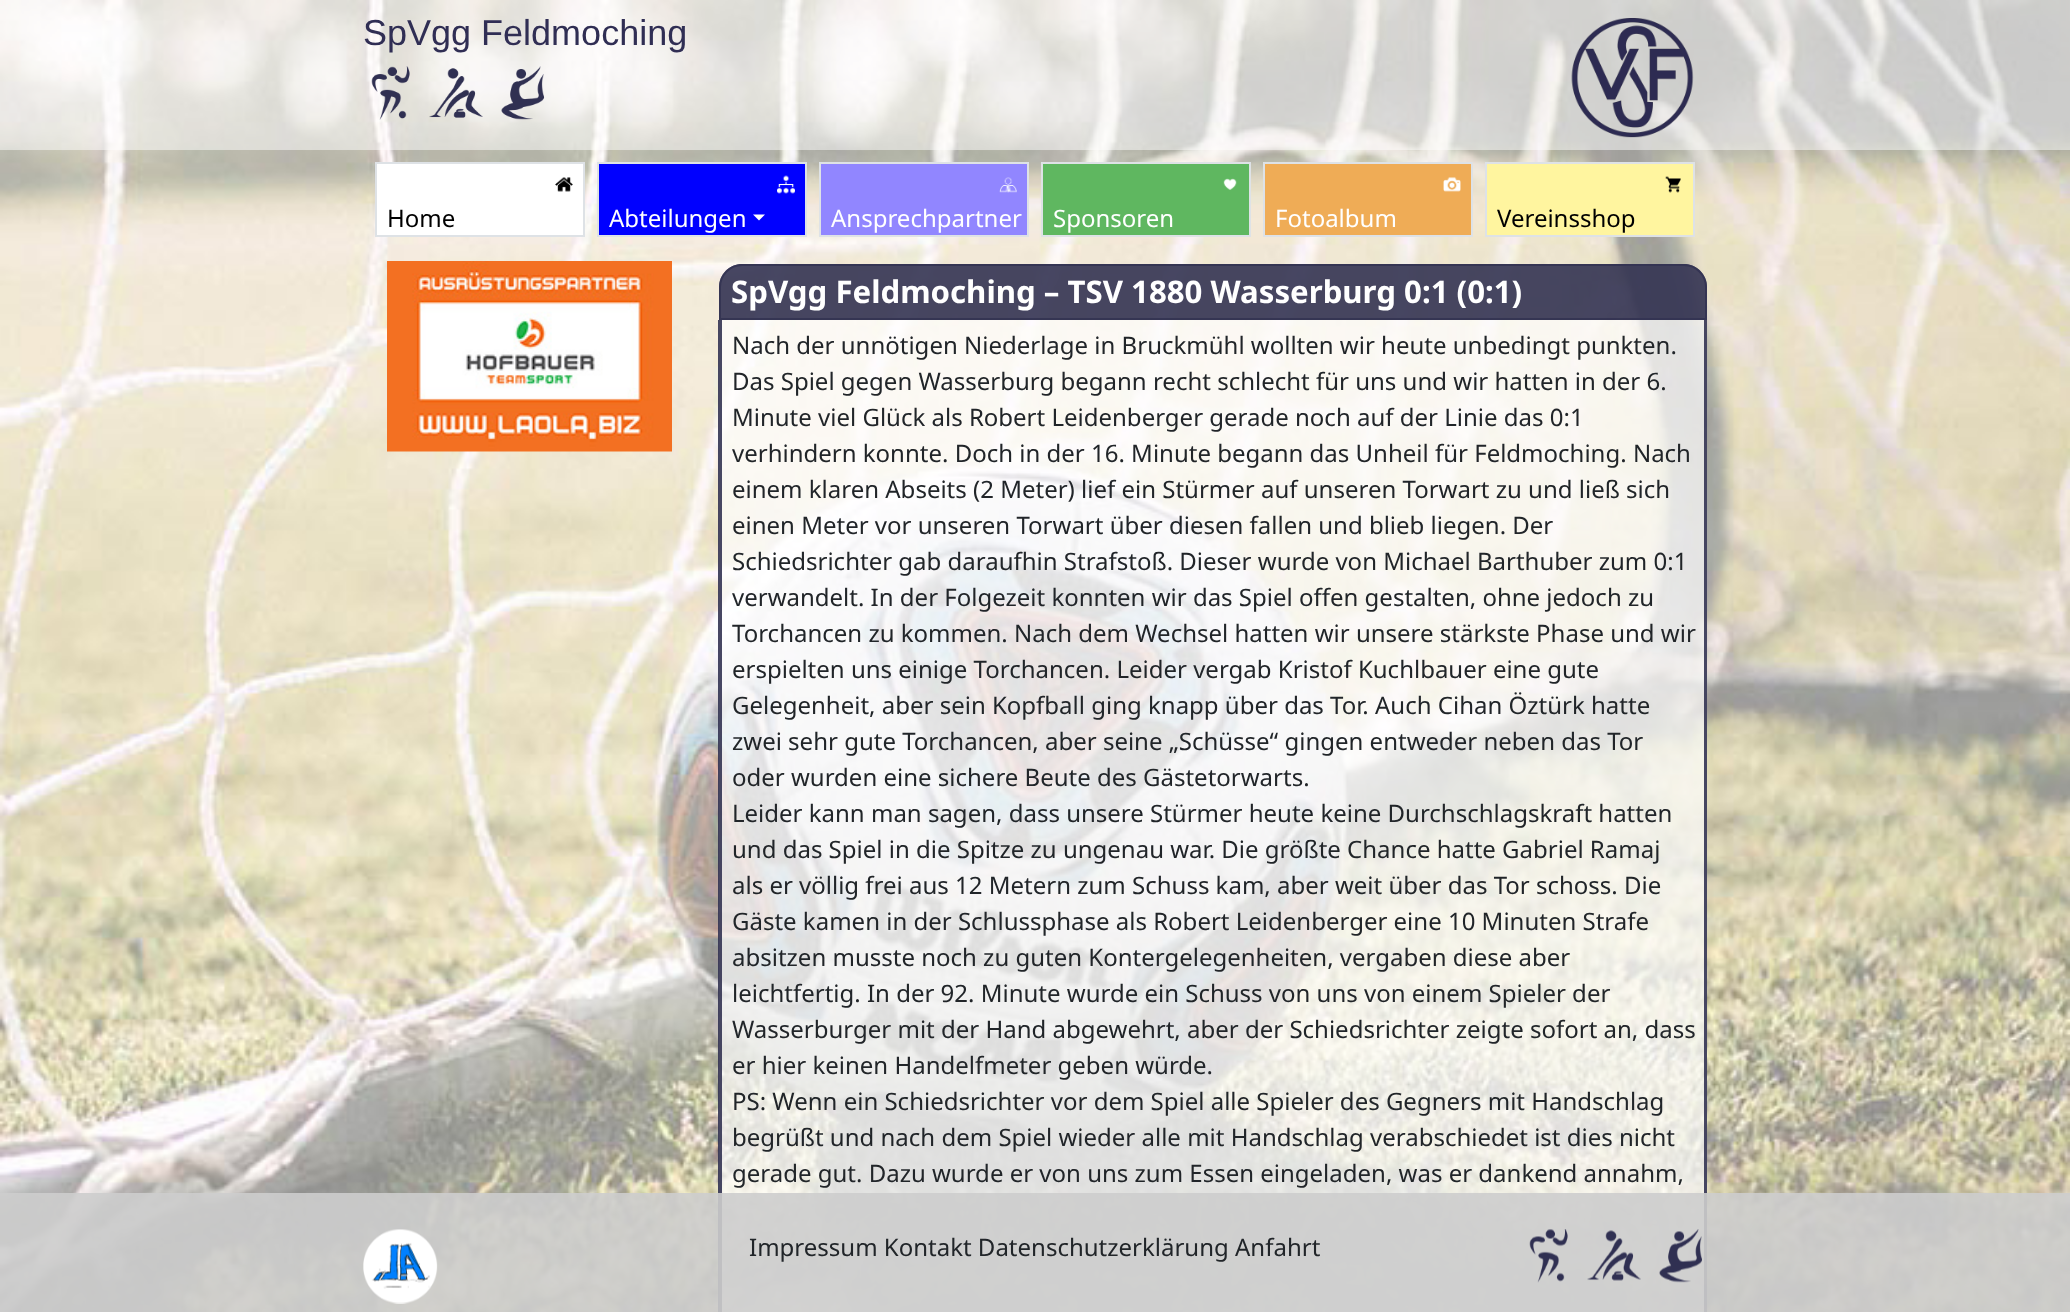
<svg xmlns="http://www.w3.org/2000/svg" width="2070" height="1312" viewBox="0 0 2070 1312">
  <style>
    .t1 { font: 36px Liberation Sans; fill: #302e54; }
    .t2 { font: 24px Noto Sans; fill: #000; }
    .t3 { font: 24px Noto Sans; fill: #fff; }
    .t4 { font: bold 31.2px Noto Sans; fill: #fff; }
    .t5 { font: 24px Noto Sans; fill: #212529; }
  </style>
  <rect width="100%" height="100%" fill="#fff"/>
  <image x="0" y="0" width="2070" height="1312" href="images/1.png"/>
  <rect x="0" y="0" width="2070" height="150" fill="#ffffff80"/>
  <text x="363" y="45" class="t1">SpVgg Feldmoching</text>
  <image x="371" y="66" width="39" height="54" href="images/2.png"/>
  <image x="429" y="68" width="54" height="50" href="images/3.png"/>
  <image x="501" y="66" width="44" height="54" href="images/4.png"/>
  <image x="1571" y="18" width="123" height="120" href="images/5.png"/>
  <rect x="376" y="163" width="208" height="73" fill="#fff" stroke="#dee2e6" stroke-width="2"/>
  <image x="555" y="177" width="18" height="15" href="images/6.png"/>
  <text x="387" y="227" class="t2">Home</text>
  <rect x="598" y="163" width="208" height="73" fill="#00f" stroke="#dee2e6" stroke-width="2"/>
  <image x="777" y="175" width="18" height="19" href="images/7.png"/>
  <text x="609" y="227" class="t3">Abteilungen</text>
  <path d="M753 214.5H765L759 220.5Z" fill="#fff"/>
  <rect x="820" y="163" width="208" height="73" fill="#9186ff" stroke="#dee2e6" stroke-width="2"/>
  <image x="999" y="177" width="18" height="16" href="images/8.png"/>
  <text x="831" y="227" class="t3">Ansprechpartner</text>
  <rect x="1042" y="163" width="208" height="73" fill="#5fb760" stroke="#dee2e6" stroke-width="2"/>
  <image x="1223" y="178" width="14" height="12" href="images/9.png"/>
  <text x="1053" y="227" class="t3">Sponsoren</text>
  <rect x="1264" y="163" width="208" height="73" fill="#efac56" stroke="#dee2e6" stroke-width="2"/>
  <image x="1443" y="177" width="18" height="15" href="images/10.png"/>
  <text x="1275" y="227" class="t3">Fotoalbum</text>
  <rect x="1486" y="163" width="208" height="73" fill="#fff59f" stroke="#dee2e6" stroke-width="2"/>
  <image x="1665" y="176" width="16" height="17" href="images/11.png"/>
  <text x="1497" y="227" class="t2">Vereinsshop</text>
  <image x="387" y="261" width="285" height="191" href="images/12.png"/>
  <path d="M742 264H1684C1696.5 264 1707 274.5 1707 287V320H719V287C719 274.5 729.5 264 742 264Z" fill="#333352e6"/>
  <path d="M742 265H1684C1696 265 1706 275 1706 287V319H720V287C720 275 730 265 742 265Z" fill="none" stroke="#333352e6" stroke-width="2"/>
  <text x="731" y="303" class="t4">SpVgg Feldmoching – TSV 1880 Wasserburg 0:1 (0:1)</text>
  <rect x="719" y="320" width="988" height="992" fill="#ffffffb3"/>
  <path d="M718 320H1707V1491C1707 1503 1697 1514 1684 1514H741C729 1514 718 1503 718 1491ZM722 320H1704V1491C1704 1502 1695 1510 1684 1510H741C730 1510 722 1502 722 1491Z" fill="#333352e6" fill-rule="evenodd"/>
  <text x="732" y="354" class="t5">Nach der unnötigen Niederlage in Bruckmühl wollten wir heute unbedingt punkten.</text>
  <text x="732" y="390" class="t5">Das Spiel gegen Wasserburg begann recht schlecht für uns und wir hatten in der 6.</text>
  <text x="732" y="426" class="t5">Minute viel Glück als Robert Leidenberger gerade noch auf der Linie das 0:1</text>
  <text x="732" y="462" class="t5">verhindern konnte. Doch in der 16. Minute begann das Unheil für Feldmoching. Nach</text>
  <text x="732" y="498" class="t5">einem klaren Abseits (2 Meter) lief ein Stürmer auf unseren Torwart zu und ließ sich</text>
  <text x="732" y="534" class="t5">einen Meter vor unseren Torwart über diesen fallen und blieb liegen. Der</text>
  <text x="732" y="570" class="t5">Schiedsrichter gab daraufhin Strafstoß. Dieser wurde von Michael Barthuber zum 0:1</text>
  <text x="732" y="606" class="t5">verwandelt. In der Folgezeit konnten wir das Spiel offen gestalten, ohne jedoch zu</text>
  <text x="732" y="642" class="t5">Torchancen zu kommen. Nach dem Wechsel hatten wir unsere stärkste Phase und wir</text>
  <text x="732" y="678" class="t5">erspielten uns einige Torchancen. Leider vergab Kristof Kuchlbauer eine gute</text>
  <text x="732" y="714" class="t5">Gelegenheit, aber sein Kopfball ging knapp über das Tor. Auch Cihan Öztürk hatte</text>
  <text x="732" y="750" class="t5">zwei sehr gute Torchancen, aber seine „Schüsse“ gingen entweder neben das Tor</text>
  <text x="732" y="786" class="t5">oder wurden eine sichere Beute des Gästetorwarts.</text>
  <text x="732" y="822" class="t5">Leider kann man sagen, dass unsere Stürmer heute keine Durchschlagskraft hatten</text>
  <text x="732" y="858" class="t5">und das Spiel in die Spitze zu ungenau war. Die größte Chance hatte Gabriel Ramaj</text>
  <text x="732" y="894" class="t5">als er völlig frei aus 12 Metern zum Schuss kam, aber weit über das Tor schoss. Die</text>
  <text x="732" y="930" class="t5">Gäste kamen in der Schlussphase als Robert Leidenberger eine 10 Minuten Strafe</text>
  <text x="732" y="966" class="t5">absitzen musste noch zu guten Kontergelegenheiten, vergaben diese aber</text>
  <text x="732" y="1002" class="t5">leichtfertig. In der 92. Minute wurde ein Schuss von uns von einem Spieler der</text>
  <text x="732" y="1038" class="t5">Wasserburger mit der Hand abgewehrt, aber der Schiedsrichter zeigte sofort an, dass</text>
  <text x="732" y="1074" class="t5">er hier keinen Handelfmeter geben würde.</text>
  <text x="732" y="1110" class="t5">PS: Wenn ein Schiedsrichter vor dem Spiel alle Spieler des Gegners mit Handschlag</text>
  <text x="732" y="1146" class="t5">begrüßt und nach dem Spiel wieder alle mit Handschlag verabschiedet ist dies nicht</text>
  <text x="732" y="1182" class="t5">gerade gut. Dazu wurde er von uns zum Essen eingeladen, was er dankend annahm,</text>
  <rect x="0" y="1193" width="2070" height="119" fill="#cdcdcde6"/>
  <image x="363" y="1229" width="75" height="75" href="images/13.png"/>
  <text x="749" y="1256" class="t5">Impressum Kontakt Datenschutzerklärung Anfahrt</text>
  <image x="1529" y="1229" width="39" height="54" href="images/14.png"/>
  <image x="1587" y="1230" width="54" height="51" href="images/15.png"/>
  <image x="1659" y="1229" width="43" height="54" href="images/16.png"/>
</svg>
